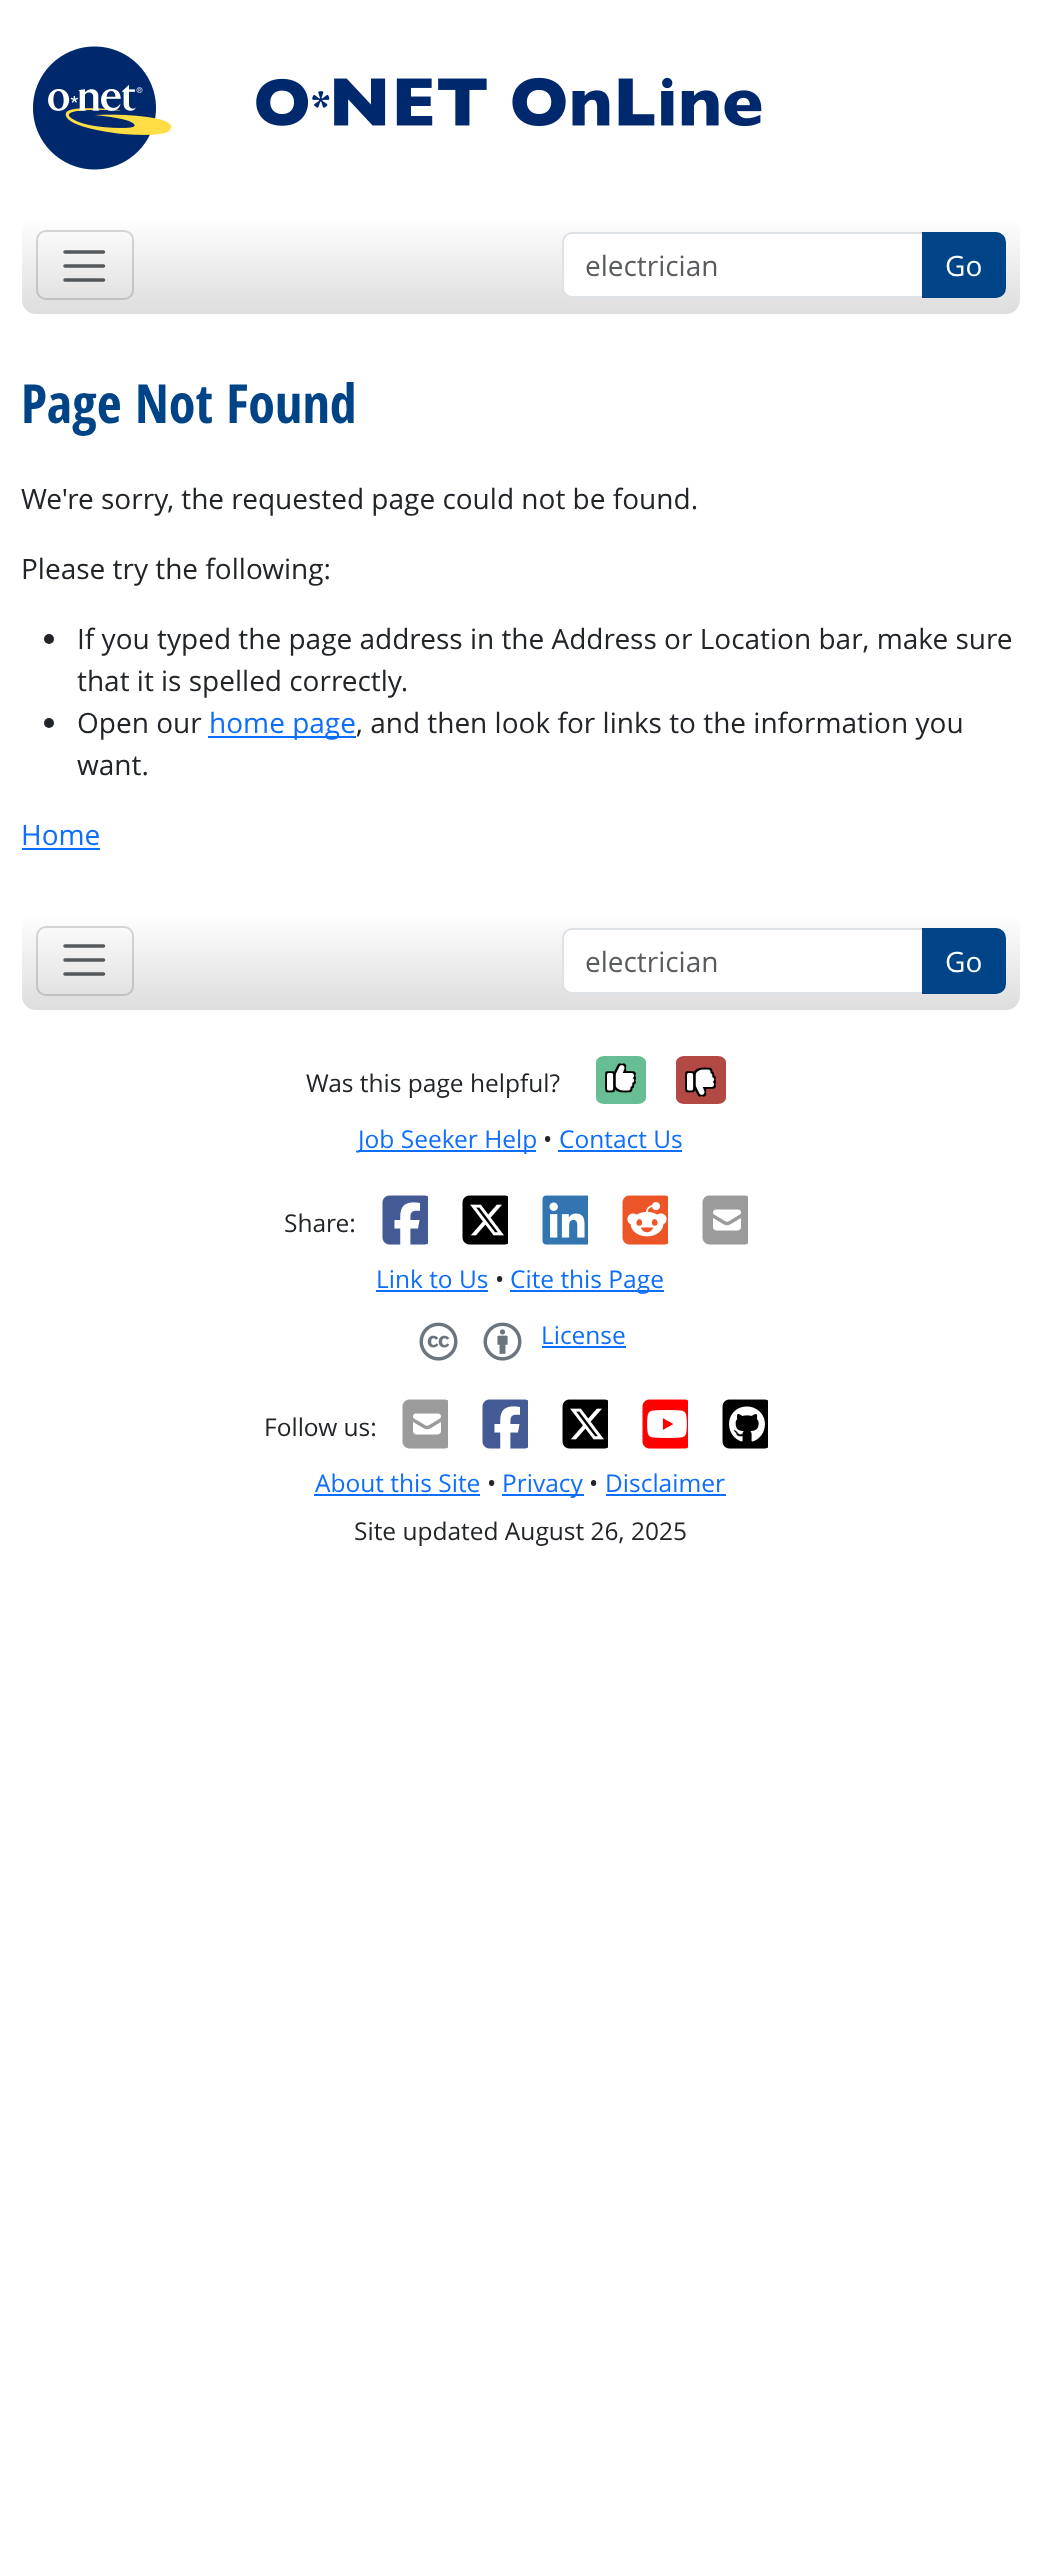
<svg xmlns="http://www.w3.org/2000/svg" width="1040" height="2550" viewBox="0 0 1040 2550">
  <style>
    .t1 { font: 28px Open Sans; fill: #595c5f; }
    .t2 { font: 28px Open Sans; fill: #fff; }
    .t3 { font: bold 54px Open Sans Condensed; fill: #048; }
    .t4 { font: 28px Open Sans; fill: #212529; }
    .t5 { font: 28px Open Sans; fill: #0d6efd; }
    .t6 { font: 24.5px Open Sans; fill: #212529; }
    .t7 { font: 24.5px Open Sans; fill: #0d6efd; }
  </style>
  <defs>
    <linearGradient id="g1" gradientUnits="userSpaceOnUse" x1="521" y1="216" x2="521" y2="314"><stop offset="0" stop-color="#fff"/><stop offset="1" stop-color="#ddd"/></linearGradient>
    <linearGradient id="g2" gradientUnits="userSpaceOnUse" x1="521" y1="912" x2="521" y2="1010"><stop offset="0" stop-color="#fff"/><stop offset="1" stop-color="#ddd"/></linearGradient>
  </defs>
  <rect width="100%" height="100%" fill="#fff"/>
  <image x="33" y="46" width="729" height="124" href="images/1.png"/>
  <rect x="22" y="216" width="998" height="98" rx="14" fill="url(#g1)"/>
  <rect x="37" y="231" width="96" height="68" rx="9" fill="none" stroke="#00000026" stroke-width="2"/>
  <path d="M65 252H103.5M65 266H103.5M65 280H103.5" fill="none" stroke="#212529bf" stroke-width="3.5" stroke-linecap="round"/>
  <path d="M572 233H923V297H572C567 297 563 293 563 288V242C563 237 567 233 572 233Z" fill="#fff" stroke="#dee2e6" stroke-width="2"/>
  <text x="585" y="276" class="t1">electrician</text>
  <path d="M923 233H996C1001 233 1005 237 1005 242V288C1005 293 1001 297 996 297H923Z" fill="#048" stroke="#048" stroke-width="2"/>
  <text x="945" y="276" class="t2">Go</text>
  <text x="21" y="423" class="t3">Page Not Found</text>
  <text x="21" y="509" class="t4">We're sorry, the requested page could not be found.</text>
  <text x="21" y="579" class="t4">Please try the following:</text>
  <circle cx="49" cy="639" r="5" fill="#212529"/>
  <text x="77" y="649" class="t4">If you typed the page address in the Address or Location bar, make sure</text>
  <text x="77" y="691" class="t4">that it is spelled correctly.</text>
  <circle cx="49" cy="723" r="5" fill="#212529"/>
  <text x="77" y="733" class="t4">Open our</text>
  <rect x="208" y="736" width="148" height="2" fill="#0d6efd"/>
  <text x="209" y="733" class="t5">home page</text>
  <text x="356" y="733" class="t4">, and then look for links to the information you</text>
  <text x="77" y="775" class="t4">want.</text>
  <text x="21" y="845" class="t5">Home</text>
  <rect x="22" y="848" width="78" height="2" fill="#0d6efd"/>
  <rect x="22" y="912" width="998" height="98" rx="14" fill="url(#g2)"/>
  <rect x="37" y="927" width="96" height="68" rx="9" fill="none" stroke="#00000026" stroke-width="2"/>
  <path d="M65 946H103.5M65 960H103.5M65 974H103.5" fill="none" stroke="#212529bf" stroke-width="3.5" stroke-linecap="round"/>
  <path d="M572 929H923V993H572C567 993 563 989 563 984V938C563 933 567 929 572 929Z" fill="#fff" stroke="#dee2e6" stroke-width="2"/>
  <text x="585" y="972" class="t1">electrician</text>
  <path d="M923 929H996C1001 929 1005 933 1005 938V984C1005 989 1001 993 996 993H923Z" fill="#048" stroke="#048" stroke-width="2"/>
  <text x="945" y="972" class="t2">Go</text>
  <text x="306" y="1092" class="t6">Was this page helpful?</text>
  <path d="M604 1056H638C642 1056 646 1059 646 1062V1098C646 1101 642 1104 638 1104H604C600 1104 596 1101 596 1098V1062C596 1059 600 1056 604 1056Z" fill="#67be94"/>
  <image x="605" y="1063" width="27" height="26" href="images/2.png"/>
  <image x="609" y="1067" width="27" height="26" href="images/5.png"/>
  <image x="609" y="1063" width="27" height="25" href="images/3.png"/>
  <image x="605" y="1075" width="22" height="18" href="images/6.png"/>
  <image x="607" y="1065" width="28" height="26" href="images/4.png"/>
  <path d="M684 1056H718C722 1056 726 1059 726 1062V1098C726 1101 722 1104 718 1104H684C680 1104 676 1101 676 1098V1062C676 1059 680 1056 684 1056Z" fill="#b24945"/>
  <image x="685" y="1067" width="22" height="22" href="images/7.png"/>
  <image x="689" y="1075" width="27" height="22" href="images/11.png"/>
  <image x="689" y="1067" width="27" height="25" href="images/8.png"/>
  <image x="685" y="1075" width="27" height="22" href="images/10.png"/>
  <image x="687" y="1069" width="28" height="26" href="images/9.png"/>
  <rect x="358" y="1150" width="178" height="2" fill="#0d6efd"/>
  <text x="358" y="1148" class="t7">Job Seeker Help</text>
  <text x="543" y="1148" class="t6">•</text>
  <text x="559" y="1148" class="t7">Contact Us</text>
  <rect x="558" y="1150" width="124" height="2" fill="#0d6efd"/>
  <text x="284" y="1232" class="t6">Share:</text>
  <image x="382" y="1195" width="46" height="50" href="images/12.png"/>
  <image x="462" y="1195" width="46" height="50" href="images/13.png"/>
  <image x="542" y="1195" width="46" height="50" href="images/14.png"/>
  <image x="622" y="1195" width="46" height="50" href="images/15.png"/>
  <image x="702" y="1195" width="46" height="50" href="images/16.png"/>
  <text x="376" y="1288" class="t7">Link to Us</text>
  <rect x="376" y="1290" width="112" height="2" fill="#0d6efd"/>
  <text x="495" y="1288" class="t6">•</text>
  <rect x="510" y="1290" width="154" height="2" fill="#0d6efd"/>
  <text x="510" y="1288" class="t7">Cite this Page</text>
  <image x="419" y="1322" width="39" height="39" href="images/17.png"/>
  <image x="483" y="1322" width="39" height="39" href="images/18.png"/>
  <text x="541" y="1344" class="t7">License</text>
  <rect x="542" y="1346" width="84" height="2" fill="#0d6efd"/>
  <text x="264" y="1436" class="t6">Follow us:</text>
  <image x="402" y="1399" width="46" height="50" href="images/16.png"/>
  <image x="482" y="1399" width="46" height="50" href="images/12.png"/>
  <image x="562" y="1399" width="46" height="50" href="images/13.png"/>
  <image x="642" y="1399" width="46" height="50" href="images/19.png"/>
  <image x="722" y="1399" width="46" height="50" href="images/20.png"/>
  <text x="315" y="1492" class="t7">About this Site</text>
  <rect x="314" y="1494" width="166" height="2" fill="#0d6efd"/>
  <text x="487" y="1492" class="t6">•</text>
  <rect x="502" y="1494" width="82" height="2" fill="#0d6efd"/>
  <text x="502" y="1492" class="t7">Privacy</text>
  <text x="589" y="1492" class="t6">•</text>
  <text x="605" y="1492" class="t7">Disclaimer</text>
  <rect x="606" y="1494" width="120" height="2" fill="#0d6efd"/>
  <text x="354" y="1540" class="t6">Site updated August 26, 2025</text>
</svg>
